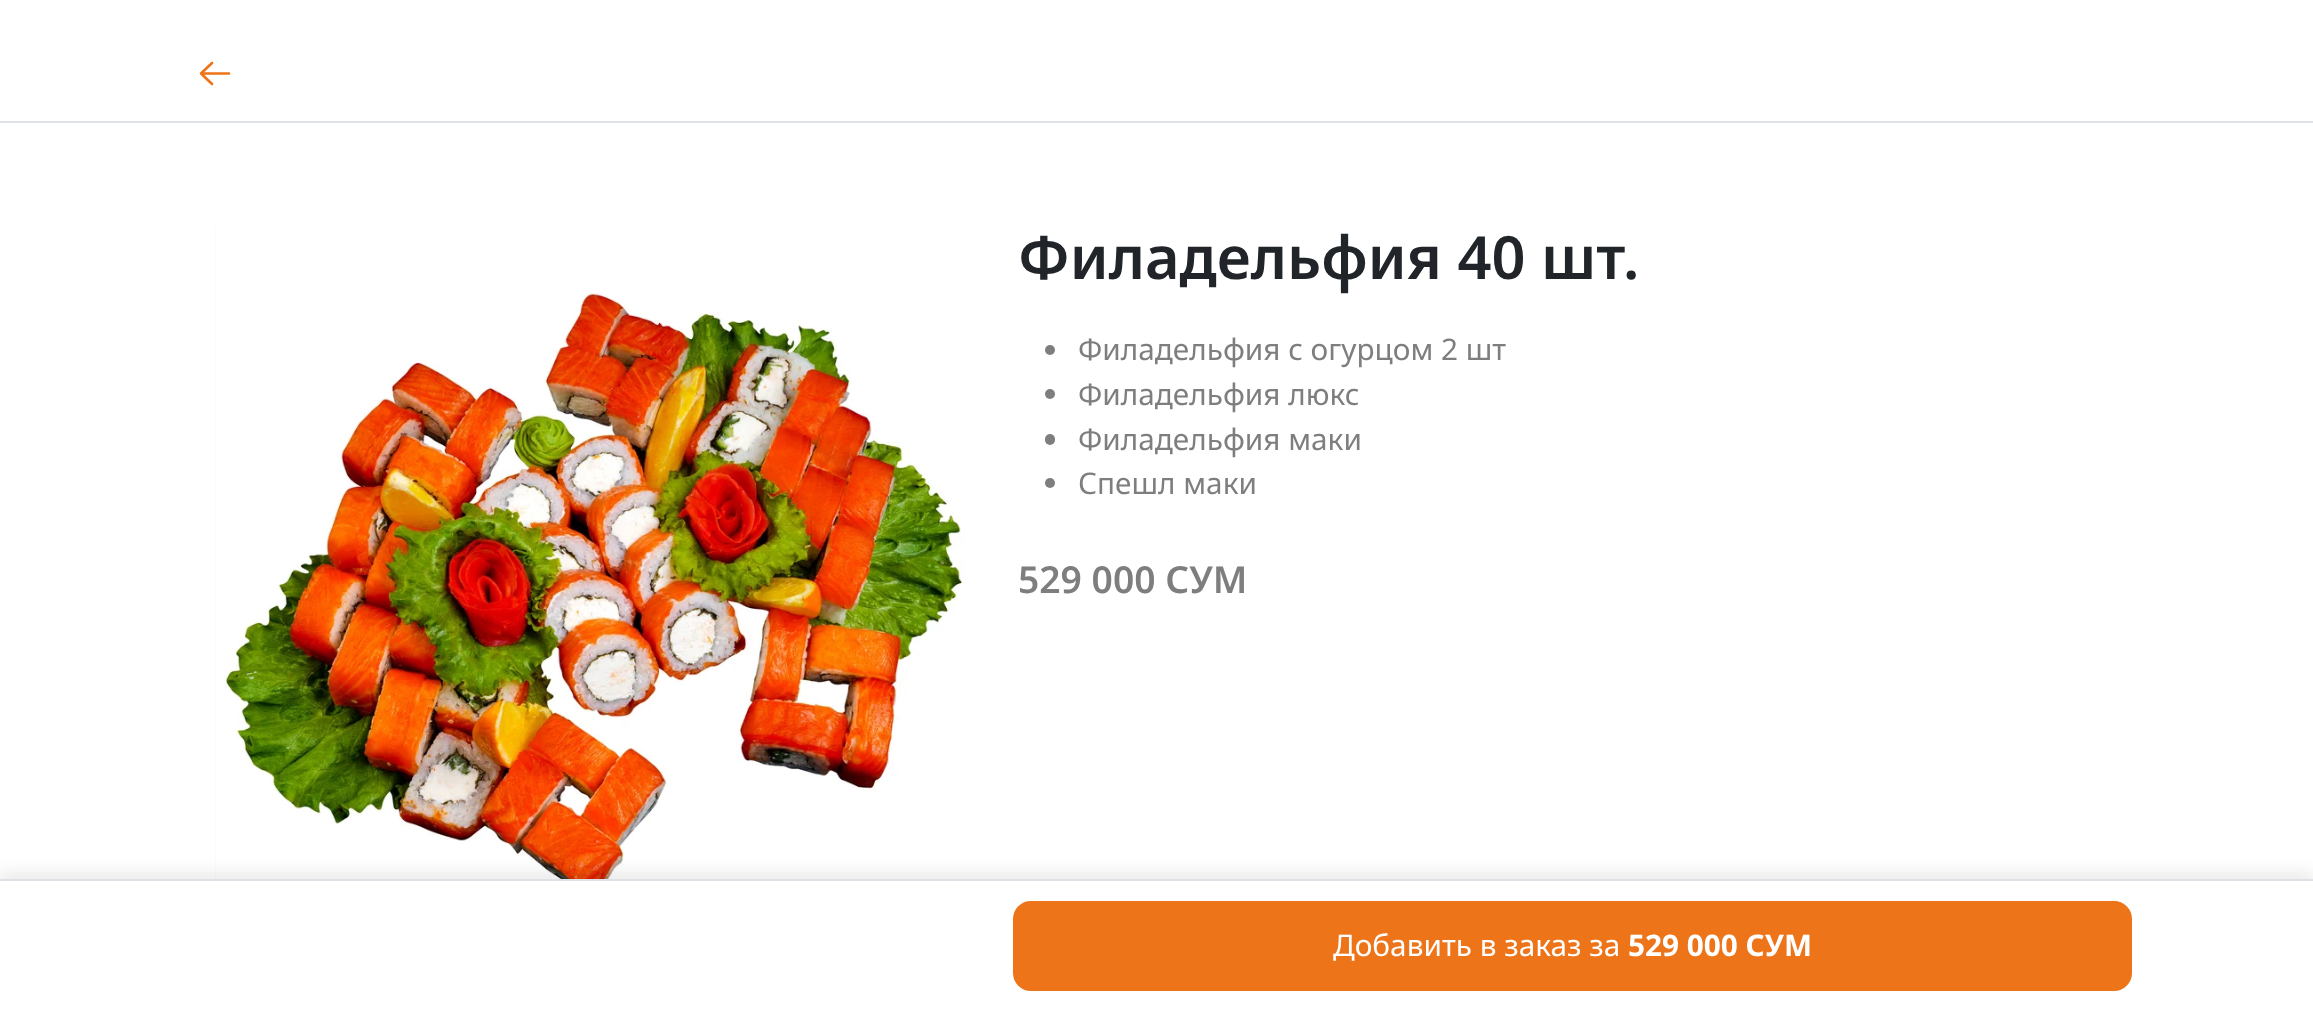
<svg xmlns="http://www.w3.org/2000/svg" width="2313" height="1017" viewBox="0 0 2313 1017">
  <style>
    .t1 { font: 600 59.5px Noto Sans; fill: #212529; }
    .t2 { font: 29.75px Noto Sans; fill: #7e7e7e; }
    .t3 { font: 600 37.25px Noto Sans; fill: #7e7e7e; }
    .t4 { font: 29.75px Noto Sans; fill: #fff; }
    .t5 { font: bold 29.75px Noto Sans; fill: #fff; }
  </style>
  <rect width="100%" height="100%" fill="#fff"/>
  <rect x="0" y="121" width="2313" height="2" fill="#dee2e6"/>
  <path d="M229 73.5H201M201 73.5L212 63M201 73.5L212 84" fill="none" stroke="#ed7418" stroke-width="2.6" stroke-linecap="round" stroke-linejoin="round"/>
  <rect x="215" y="214" width="758" height="759" rx="18" fill="#f5f5f5"/>
  <image x="215" y="214" width="758" height="665" href="images/1.png"/>
  <text x="1018" y="279" class="t1">Филадельфия 40 шт.</text>
  <circle cx="1050" cy="350" r="5" fill="#7e7e7e"/>
  <text x="1078" y="360" class="t2">Филадельфия с огурцом 2 шт</text>
  <circle cx="1050" cy="394" r="5" fill="#7e7e7e"/>
  <text x="1078" y="405" class="t2">Филадельфия люкс</text>
  <rect x="1045" y="434" width="10" height="11" rx="5" fill="#7e7e7e"/>
  <text x="1078" y="450" class="t2">Филадельфия маки</text>
  <circle cx="1050" cy="483" r="5" fill="#7e7e7e"/>
  <text x="1078" y="494" class="t2">Спешл маки</text>
  <text x="1018" y="593" class="t3">529 000 СУМ</text>
  <rect x="0" y="872" width="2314" height="140" fill="#00000014" filter="blur(7.5px)"/>
  <rect x="0" y="881" width="2313" height="136" fill="#fff"/>
  <rect x="0" y="879" width="2313" height="2" fill="#dee2e6"/>
  <rect x="1014" y="902" width="1117" height="88" rx="17" fill="#ed7418" stroke="#ed7418" stroke-width="2"/>
  <text x="1333" y="956" class="t4">Добавить в заказ за</text>
  <text x="1628" y="956" class="t5">529 000 СУМ</text>
</svg>
